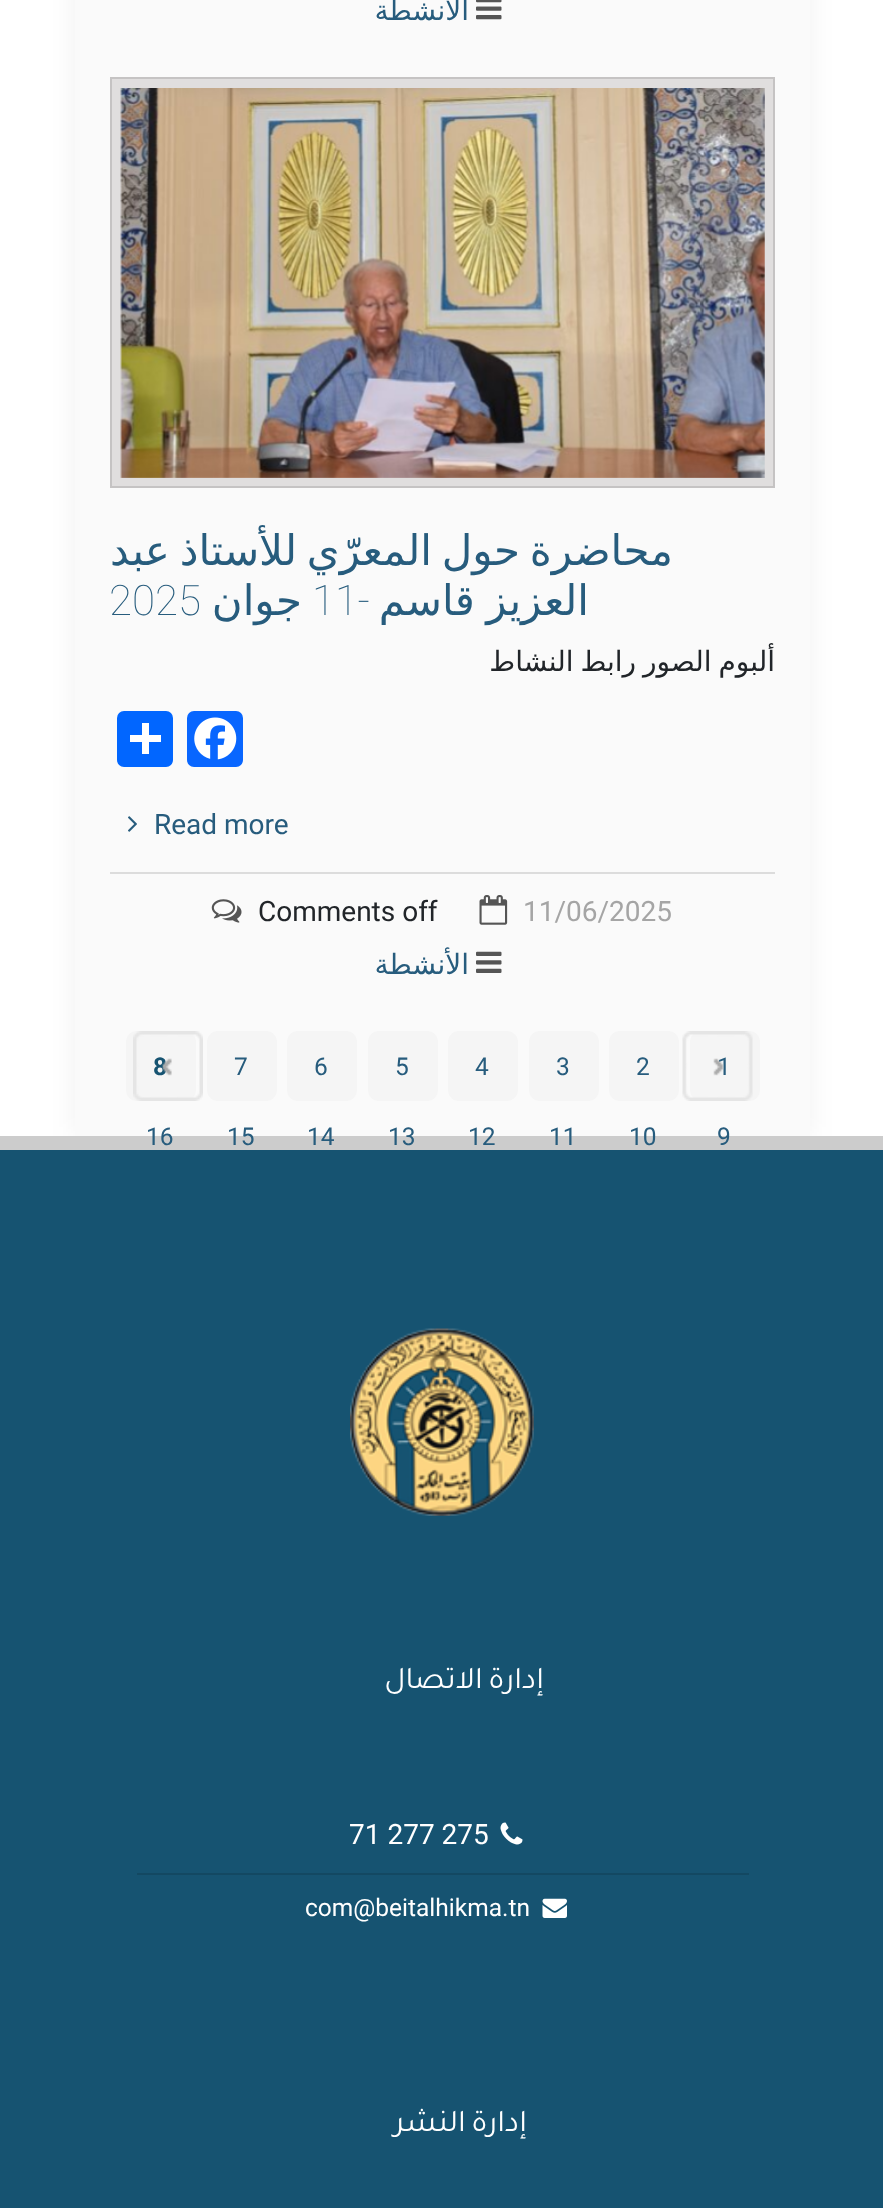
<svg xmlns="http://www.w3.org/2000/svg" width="883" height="2208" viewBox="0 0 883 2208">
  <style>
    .t1 { font: 28px DejaVu Sans; direction: rtl; fill: #275c7d; }
    .t2 { font: 42px DejaVu Sans; direction: rtl; fill: #275c7d; }
    .t3 { font: 100 42px Roboto; direction: rtl; fill: #275c7d; }
    .t4 { font: 100 42px Roboto; fill: #275c7d; }
    .t5 { font: 28px DejaVu Sans; direction: rtl; fill: #212529; }
    .t6 { font: 28px Roboto; fill: #275c7d; }
    .t7 { font: 28px Roboto; fill: #a5a5a5; }
    .t8 { font: 28px Roboto; fill: #212529; }
    .t9 { font: 24.5px Roboto; fill: #275c7d; }
    .t10 { font: bold 24.5px Roboto; fill: #165371; }
    .t11 { font: 31.5px Tajawal; letter-spacing: 1.75px; direction: rtl; fill: #fff; }
    .t12 { font: 28px Roboto; fill: #fff; }
    .t13 { font: 24.5px Roboto; fill: #fff; }
  </style>
  <defs>
    <clipPath id="clip1"><rect x="110" y="77" width="665" height="768"/></clipPath>
  </defs>
  <rect width="100%" height="100%" fill="#fff"/>
  <rect x="75" y="-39" width="735" height="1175" fill="#0000000f" filter="blur(13px)"/>
  <rect x="75" y="0" width="735" height="1136" fill="#fafafa"/>
  <image x="476" y="0" width="26" height="20" href="images/1.png"/>
  <text x="469" y="20" class="t1">الأنشطة</text>
  <rect x="111" y="78" width="663" height="409" fill="#e0dede" stroke="#c5c3c3" stroke-width="2"/>
  <image x="120" y="88" width="645" height="390" href="images/2.png"/>
  <text x="673" y="565" word-spacing="-3.5" class="t2">محاضرة حول المعرّي للأستاذ عبد</text>
  <text x="589" y="615" word-spacing="-2" class="t2">العزيز قاسم</text>
  <text x="370" y="615" class="t3">-</text>
  <text x="312" y="615" class="t4">11</text>
  <text x="302" y="615" class="t2">جوان</text>
  <text x="109" y="615" class="t4">2025</text>
  <g clip-path="url(#clip1)">
    <text x="775" y="671" word-spacing="-2" class="t5">ألبوم الصور رابط النشاط</text>
  </g>
  <rect x="187" y="711" width="56" height="56" rx="7" fill="#0866ff"/>
  <image x="194" y="717" width="43" height="43" href="images/3.png"/>
  <rect x="117" y="711" width="56" height="56" rx="7" fill="#0166ff"/>
  <rect x="142" y="723" width="7" height="31" fill="#fff"/>
  <rect x="130" y="735" width="31" height="7" fill="#fff"/>
  <text x="154" y="834" class="t6">Read more</text>
  <image x="128" y="816" width="9" height="16" href="images/4.png"/>
  <rect x="110" y="872" width="665" height="2" fill="#dcdcdc"/>
  <text x="523" y="921" class="t7">11/06/2025</text>
  <image x="479" y="895" width="29" height="30" href="images/5.png"/>
  <text x="258" y="921" class="t8">Comments off</text>
  <image x="211" y="899" width="31" height="24" href="images/6.png"/>
  <image x="476" y="951" width="26" height="22" href="images/7.png"/>
  <text x="469" y="974" class="t1">الأنشطة</text>
  <rect x="690" y="1031" width="70" height="70" rx="11" fill="#f5f5f5"/>
  <text x="717" y="1075" class="t9">1</text>
  <image x="682" y="1031" width="71" height="70" href="images/8.png"/>
  <rect x="126" y="1031" width="70" height="70" rx="11" fill="#f5f5f5"/>
  <text x="153" y="1075" class="t10">8</text>
  <image x="133" y="1031" width="70" height="70" href="images/9.png"/>
  <rect x="609" y="1031" width="70" height="70" rx="11" fill="#f5f5f5"/>
  <text x="636" y="1075" class="t9">2</text>
  <rect x="529" y="1031" width="70" height="70" rx="11" fill="#f5f5f5"/>
  <text x="556" y="1075" class="t9">3</text>
  <rect x="448" y="1031" width="70" height="70" rx="11" fill="#f5f5f5"/>
  <text x="475" y="1075" class="t9">4</text>
  <rect x="368" y="1031" width="70" height="70" rx="11" fill="#f5f5f5"/>
  <text x="395" y="1075" class="t9">5</text>
  <rect x="287" y="1031" width="70" height="70" rx="11" fill="#f5f5f5"/>
  <text x="314" y="1075" class="t9">6</text>
  <rect x="207" y="1031" width="70" height="70" rx="11" fill="#f5f5f5"/>
  <text x="234" y="1075" class="t9">7</text>
  <rect x="0" y="1136" width="883" height="14" fill="#ccc"/>
  <text x="717" y="1145" class="t9">9</text>
  <text x="629" y="1145" class="t9">10</text>
  <text x="549" y="1145" class="t9">11</text>
  <text x="468" y="1145" class="t9">12</text>
  <text x="388" y="1145" class="t9">13</text>
  <text x="307" y="1145" class="t9">14</text>
  <text x="227" y="1145" class="t9">15</text>
  <text x="146" y="1145" class="t9">16</text>
  <rect x="0" y="1150" width="883" height="1058" fill="#165371"/>
  <image x="350" y="1328" width="184" height="188" href="images/10.png"/>
  <text x="544" y="1688" word-spacing="-2" class="t11">إدارة الاتصال</text>
  <rect x="137" y="1873" width="612" height="2" fill="#134862"/>
  <image x="500" y="1822" width="23" height="23" href="images/11.png"/>
  <text x="349" y="1844" class="t12">71 277 275</text>
  <image x="542" y="1898" width="25" height="20" href="images/12.png"/>
  <text x="305" y="1916" class="t13">com@beitalhikma.tn</text>
  <text x="527" y="2131" word-spacing="-2" class="t11">إدارة النشر</text>
</svg>
